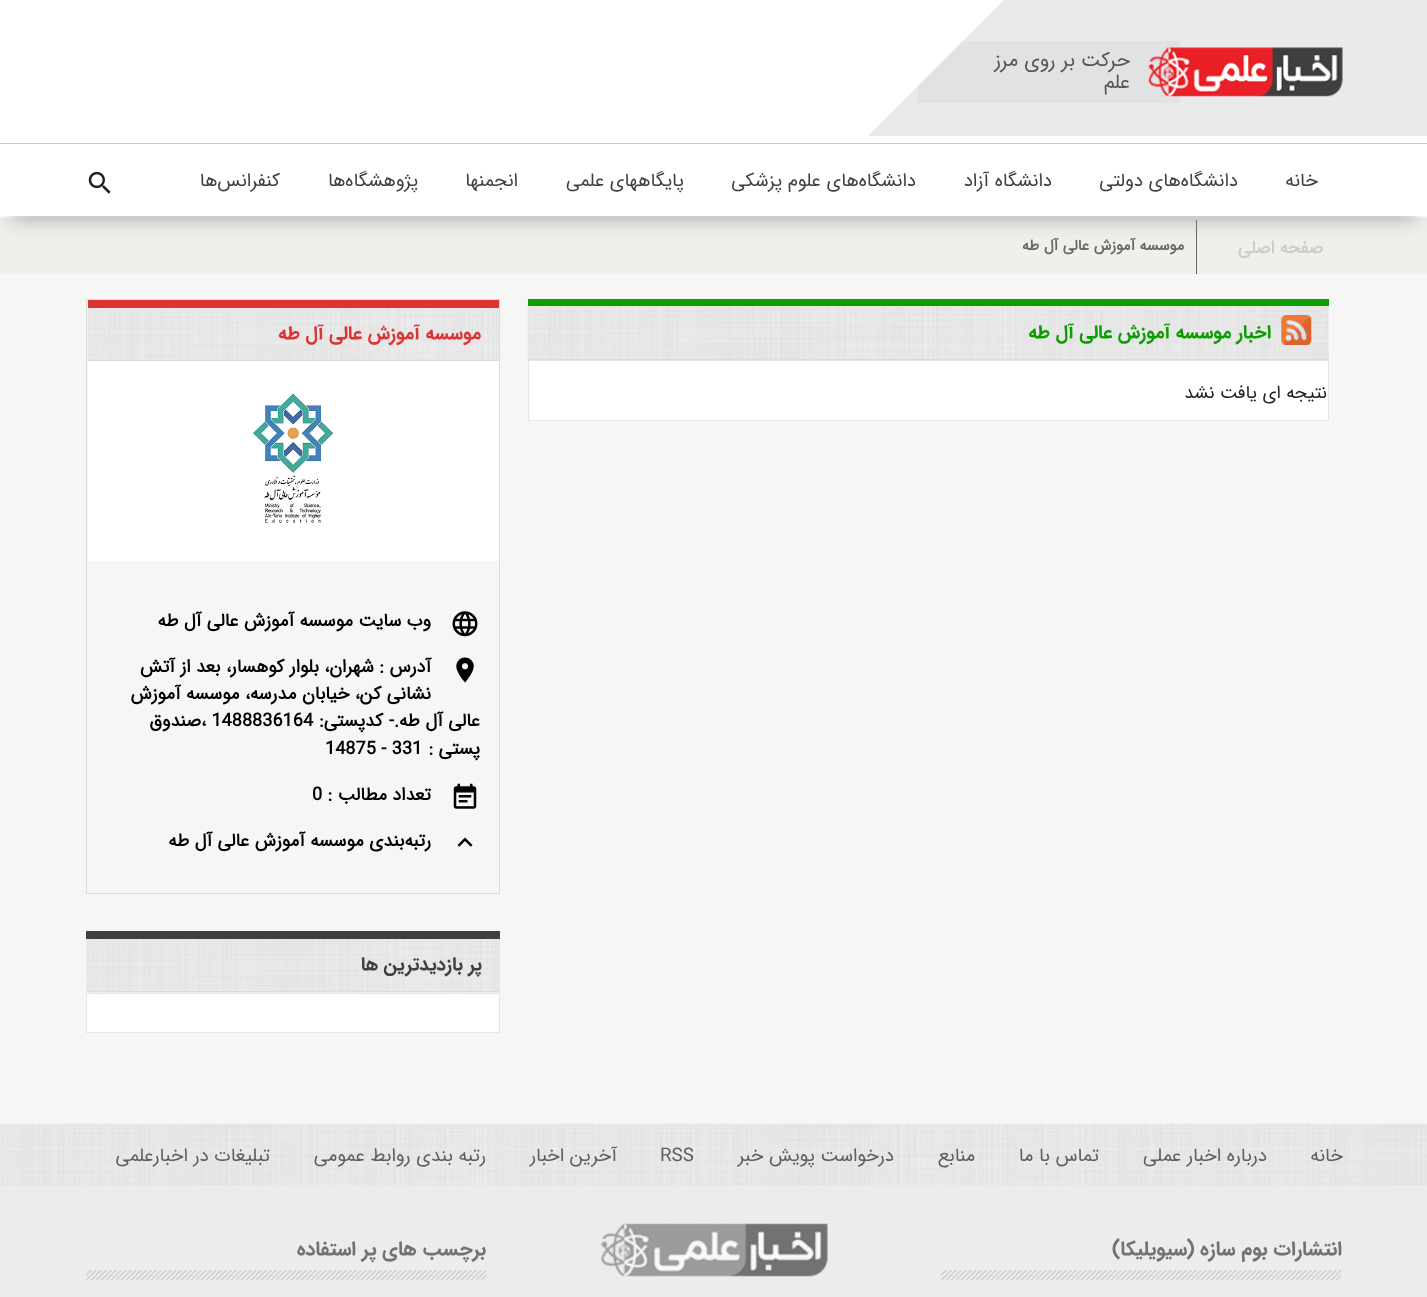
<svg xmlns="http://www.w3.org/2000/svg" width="1427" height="1297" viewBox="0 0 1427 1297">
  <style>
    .t1 { font: 20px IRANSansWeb; direction: rtl; fill: #565656; }
    .t2 { font: 18.75px IRANSansWeb; direction: rtl; fill: #403e3f; }
    .t3 { font: bold 17.5px 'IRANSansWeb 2'; direction: rtl; fill: #ccc; }
    .t4 { font: bold 15px 'IRANSansWeb 2'; direction: rtl; fill: #666; }
    .t5 { font: bold 18.75px IRANSansWeb; direction: rtl; fill: #0a9e01; }
    .t6 { font: 18.1px IRANSansWeb; direction: rtl; fill: #212121; }
    .t7 { font: bold 18.75px IRANSansWeb; direction: rtl; fill: #d33; }
    .t8 { font: bold 18.1px 'IRANSansWeb 2'; direction: rtl; fill: #000; }
    .t9 { font: bold 18.1px 'IRANSansWeb 2'; fill: #000; }
    .t10 { font: bold 18.75px IRANSansWeb; direction: rtl; fill: #403e3f; }
    .t11 { font: 18.75px IRANSansWeb; direction: rtl; fill: #5e5e5e; }
    .t12 { font: 18.75px IRANSansWeb; fill: #5e5e5e; }
    .t13 { font: bold 20px IRANSansWeb; direction: rtl; fill: #727272; }
  </style>
  <defs>
    <clipPath id="clip1"><rect x="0" y="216" width="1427" height="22"/></clipPath>
  </defs>
  <rect width="100%" height="100%" fill="#f6f6f6"/>
  <rect x="0" y="0" width="1427" height="218" fill="#fff"/>
  <rect x="868" y="0" width="559" height="136" fill="#eaeaea"/>
  <rect x="918" y="41" width="262" height="62" fill="#e3e2e2"/>
  <image x="1148" y="47" width="195" height="50" href="images/1.png"/>
  <text x="1130" y="66" class="t1">حرکت بر روی مرز</text>
  <text x="1130" y="88" class="t1">علم</text>
  <path d="M1013-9L801 203V-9Z" fill="#fff"/>
  <rect x="0" y="218" width="1427" height="56" fill="#efefec"/>
  <rect x="1196" y="220" width="1" height="54" fill="#666"/>
  <g clip-path="url(#clip1)">
    <rect x="11" y="165" width="1405" height="51" fill="#929292" filter="blur(10.5px)"/>
  </g>
  <rect x="0" y="143" width="1427" height="1" fill="#c9c9c9"/>
  <text x="1318" y="186" class="t2">خانه</text>
  <text x="1238" y="186" class="t2">دانشگاه‌های دولتی</text>
  <text x="1052" y="186" class="t2">دانشگاه آزاد</text>
  <text x="916" y="186" class="t2">دانشگاه‌های علوم پزشکی</text>
  <text x="684" y="186" class="t2">پایگاههای علمی</text>
  <text x="518" y="186" class="t2">انجمنها</text>
  <text x="418" y="186" class="t2">پژوهشگاه‌ها</text>
  <text x="280" y="186" class="t2">کنفرانس‌ها</text>
  <image x="88" y="171" width="23" height="23" href="images/2.png"/>
  <text x="1323" y="253" class="t3">صفحه اصلی</text>
  <text x="1184" y="250" class="t4">موسسه آموزش عالی آل طه</text>
  <image x="527" y="298" width="802" height="62" href="images/3.png"/>
  <rect x="528" y="299" width="801" height="7" fill="#0a9e01"/>
  <rect x="528" y="359" width="801" height="1" fill="#dbdbdb"/>
  <image x="1281" y="315" width="31" height="30" href="images/4.png"/>
  <text x="1271" y="338" class="t5">اخبار موسسه آموزش عالی آل طه</text>
  <rect x="528.5" y="360.5" width="800" height="60" fill="#fff" stroke="#e5e5e5"/>
  <text x="1327" y="398" class="t6">نتیجه ای یافت نشد</text>
  <rect x="86.5" y="299.5" width="413" height="594" fill="none" stroke="#dbdbdb"/>
  <image x="87" y="300" width="412" height="62" href="images/5.png"/>
  <rect x="88" y="300" width="411" height="8" fill="#d33"/>
  <rect x="88" y="360" width="411" height="1" fill="#dbdbdb"/>
  <text x="481" y="339" class="t7">موسسه آموزش عالی آل طه</text>
  <rect x="88" y="361" width="411" height="200" fill="#fff"/>
  <image x="253" y="393" width="81" height="130" href="images/6.png"/>
  <image x="452" y="611" width="26" height="26" href="images/7.png"/>
  <text x="431" y="626" class="t8">وب سایت</text>
  <text x="353" y="626" class="t8">موسسه آموزش عالی آل طه</text>
  <image x="456" y="657" width="18" height="26" href="images/8.png"/>
  <text x="431" y="672" class="t8">آدرس : شهران، بلوار کوهسار، بعد از آتش</text>
  <text x="431" y="699" class="t8">نشانی کن، خیابان مدرسه، موسسه آموزش</text>
  <text x="480" y="726" class="t8">عالی آل طه.-</text>
  <text x="383" y="726" class="t8">کدپستی:</text>
  <text x="201" y="726" class="t9">، 1488836164</text>
  <text x="201" y="726" class="t8">صندوق</text>
  <text x="480" y="754" class="t8">پستی :</text>
  <text x="325" y="754" class="t9">14875 - 331</text>
  <image x="453" y="783" width="24" height="26" href="images/9.png"/>
  <text x="431" y="800" class="t8">تعداد مطالب :</text>
  <text x="312" y="800" class="t9">0</text>
  <image x="457" y="837" width="16" height="10" href="images/10.png"/>
  <text x="431" y="846" class="t8">رتبه‌بندی موسسه آموزش عالی آل طه</text>
  <image x="86" y="939" width="414" height="54" href="images/11.png"/>
  <rect x="86" y="931" width="414" height="8" fill="#403e3f"/>
  <rect x="86" y="991" width="414" height="1" fill="#dbdbdb"/>
  <text x="482" y="970" class="t10">پر بازدیدترین ها</text>
  <rect x="86.5" y="993.5" width="413" height="39" fill="#fff" stroke="#e5e5e5"/>
  <image x="0" y="1123" width="1427" height="63" href="images/12.png"/>
  <text x="1343" y="1161" class="t11">خانه</text>
  <text x="1267" y="1161" class="t11">درباره اخبار عملی</text>
  <text x="1099" y="1161" class="t11">تماس با ما</text>
  <text x="975" y="1161" class="t11">منابع</text>
  <text x="894" y="1161" class="t11">درخواست پویش خبر</text>
  <text x="660" y="1161" class="t12">RSS</text>
  <text x="617" y="1161" class="t11">آخرین اخبار</text>
  <text x="486" y="1161" class="t11">رتبه بندی روابط عمومی</text>
  <text x="270" y="1161" class="t11">تبلیغات در اخبارعلمی</text>
  <rect x="0" y="1186" width="1427" height="111" fill="#ececec"/>
  <text x="1342" y="1255" class="t13">انتشارات بوم سازه (سیویلیکا)</text>
  <image x="941" y="1270" width="401" height="10" href="images/13.png"/>
  <image x="601" y="1223" width="227" height="54" href="images/14.png"/>
  <text x="486" y="1255" class="t13">برچسب های پر استفاده</text>
  <image x="86" y="1270" width="401" height="10" href="images/15.png"/>
</svg>
